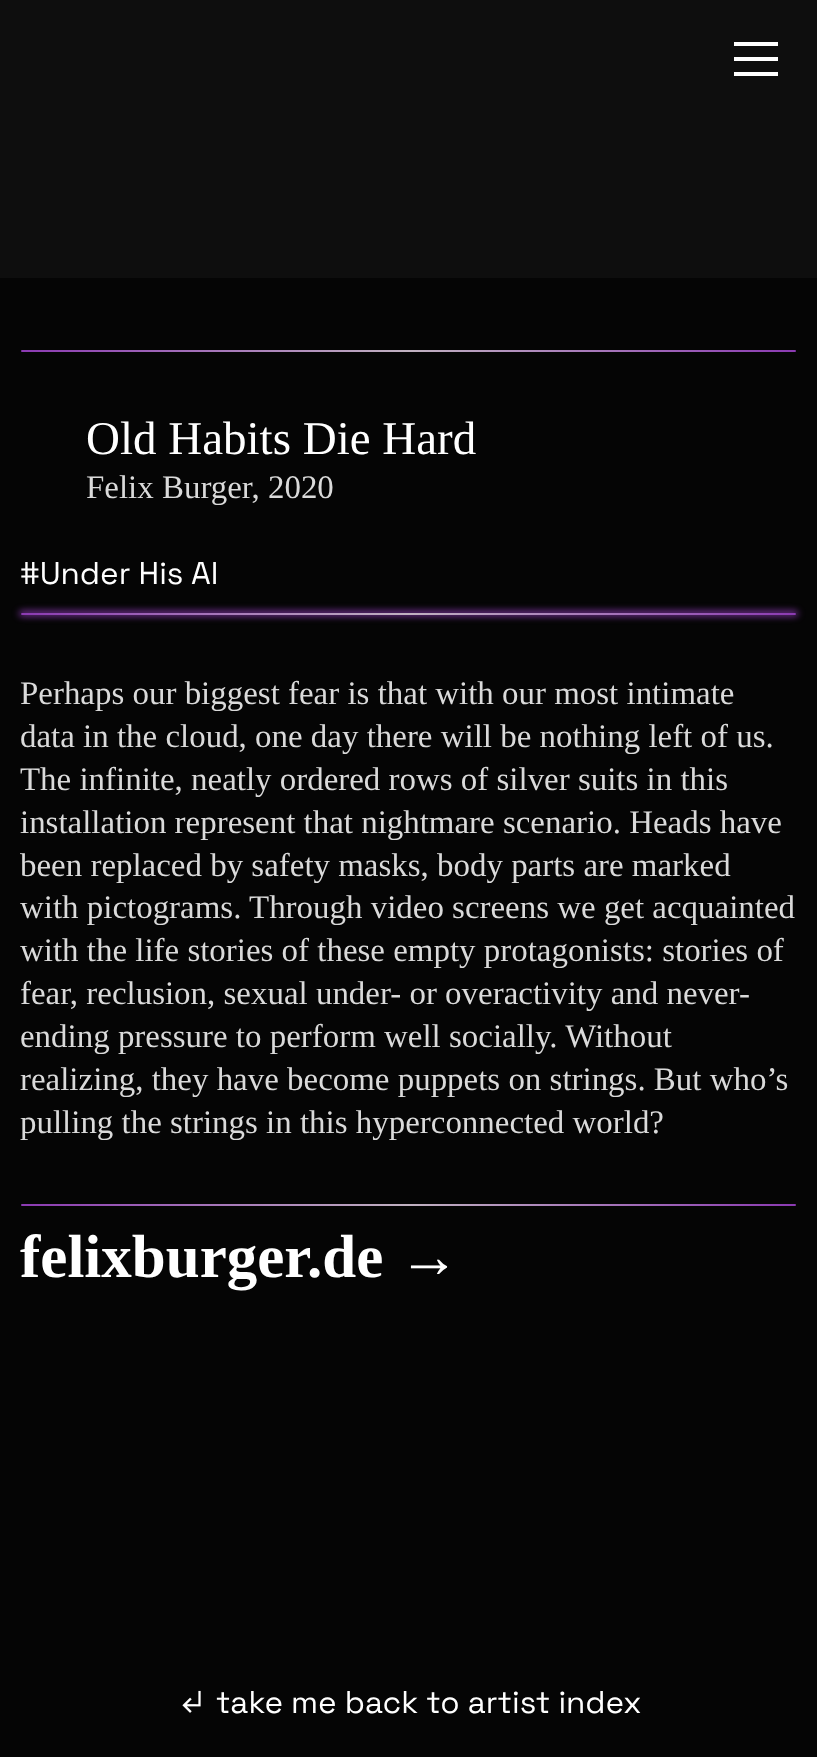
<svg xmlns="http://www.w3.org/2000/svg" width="817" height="1757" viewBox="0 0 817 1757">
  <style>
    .t1 { font: 47px Liberation Serif; fill: #fff; }
    .t2 { font: 32.95px Liberation Serif; fill: #dadada; }
    .t3 { font: 31.4px Space Grotesk; fill: #fff; }
    .t4 { font: bold 61px Liberation Serif; fill: #fff; }
  </style>
  <defs>
    <linearGradient id="g1" gradientUnits="userSpaceOnUse" x1="21" y1="351" x2="796" y2="351"><stop offset="0" stop-color="#8b3ab2"/><stop offset="0.5" stop-color="#c1b2c1"/><stop offset="1" stop-color="#8b3ab2"/></linearGradient>
    <clipPath id="clip1"><path d="M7 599H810V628H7ZM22 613H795C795.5 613 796 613.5 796 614C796 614.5 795.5 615 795 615H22C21.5 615 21 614.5 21 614C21 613.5 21.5 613 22 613Z" clip-rule="evenodd"/></clipPath>
    <linearGradient id="g2" gradientUnits="userSpaceOnUse" x1="21" y1="613" x2="796" y2="613"><stop offset="0" stop-color="#b84cec" stop-opacity="0.75"/><stop offset="0.5" stop-color="#ffebff" stop-opacity="0.75"/><stop offset="1" stop-color="#b84cec" stop-opacity="0.75"/></linearGradient>
    <linearGradient id="g3" gradientUnits="userSpaceOnUse" x1="21" y1="1205" x2="796" y2="1205"><stop offset="0" stop-color="#8b3ab2"/><stop offset="0.5" stop-color="#c1b2c1"/><stop offset="1" stop-color="#8b3ab2"/></linearGradient>
  </defs>
  <rect width="100%" height="100%" fill="#050505"/>
  <rect x="0" y="0" width="817" height="278" fill="#0e0e0e"/>
  <path d="M778 42V46H734V42ZM778 57V61H734V57ZM778 72V76H734V72Z" fill="#fff"/>
  <rect x="21" y="350" width="775" height="2" rx="1" fill="url(#g1)"/>
  <text x="86" y="454" class="t1">Old Habits Die Hard</text>
  <text x="86" y="498" class="t2">Felix Burger, 2020</text>
  <text x="20" y="584" class="t3">#Under His AI</text>
  <g clip-path="url(#clip1)">
    <rect x="19" y="611" width="779" height="5" rx="2.5" fill="#b84cecba" filter="blur(3.5px)"/>
  </g>
  <rect x="21" y="613" width="775" height="2" rx="1" fill="url(#g2)"/>
  <text x="20" y="704" class="t2">Perhaps our biggest fear is that with our most intimate</text>
  <text x="20" y="747" class="t2">data in the cloud, one day there will be nothing left of us.</text>
  <text x="20" y="790" class="t2">The infinite, neatly ordered rows of silver suits in this</text>
  <text x="20" y="833" class="t2">installation represent that nightmare scenario. Heads have</text>
  <text x="20" y="876" class="t2">been replaced by safety masks, body parts are marked</text>
  <text x="20" y="918" class="t2">with pictograms. Through video screens we get acquainted</text>
  <text x="20" y="961" class="t2">with the life stories of these empty protagonists: stories of</text>
  <text x="20" y="1004" class="t2">fear, reclusion, sexual under- or overactivity and never-</text>
  <text x="20" y="1047" class="t2">ending pressure to perform well socially. Without</text>
  <text x="20" y="1090" class="t2">realizing, they have become puppets on strings. But who’s</text>
  <text x="20" y="1133" class="t2">pulling the strings in this hyperconnected world?</text>
  <rect x="21" y="1204" width="775" height="2" rx="1" fill="url(#g3)"/>
  <text x="20" y="1277" class="t4">felixburger</text>
  <text x="307" y="1277" class="t4">.de →</text>
  <image x="182" y="1690" width="19" height="23" href="images/1.png"/>
  <text x="216" y="1713" class="t3">take me back to artist index</text>
</svg>
